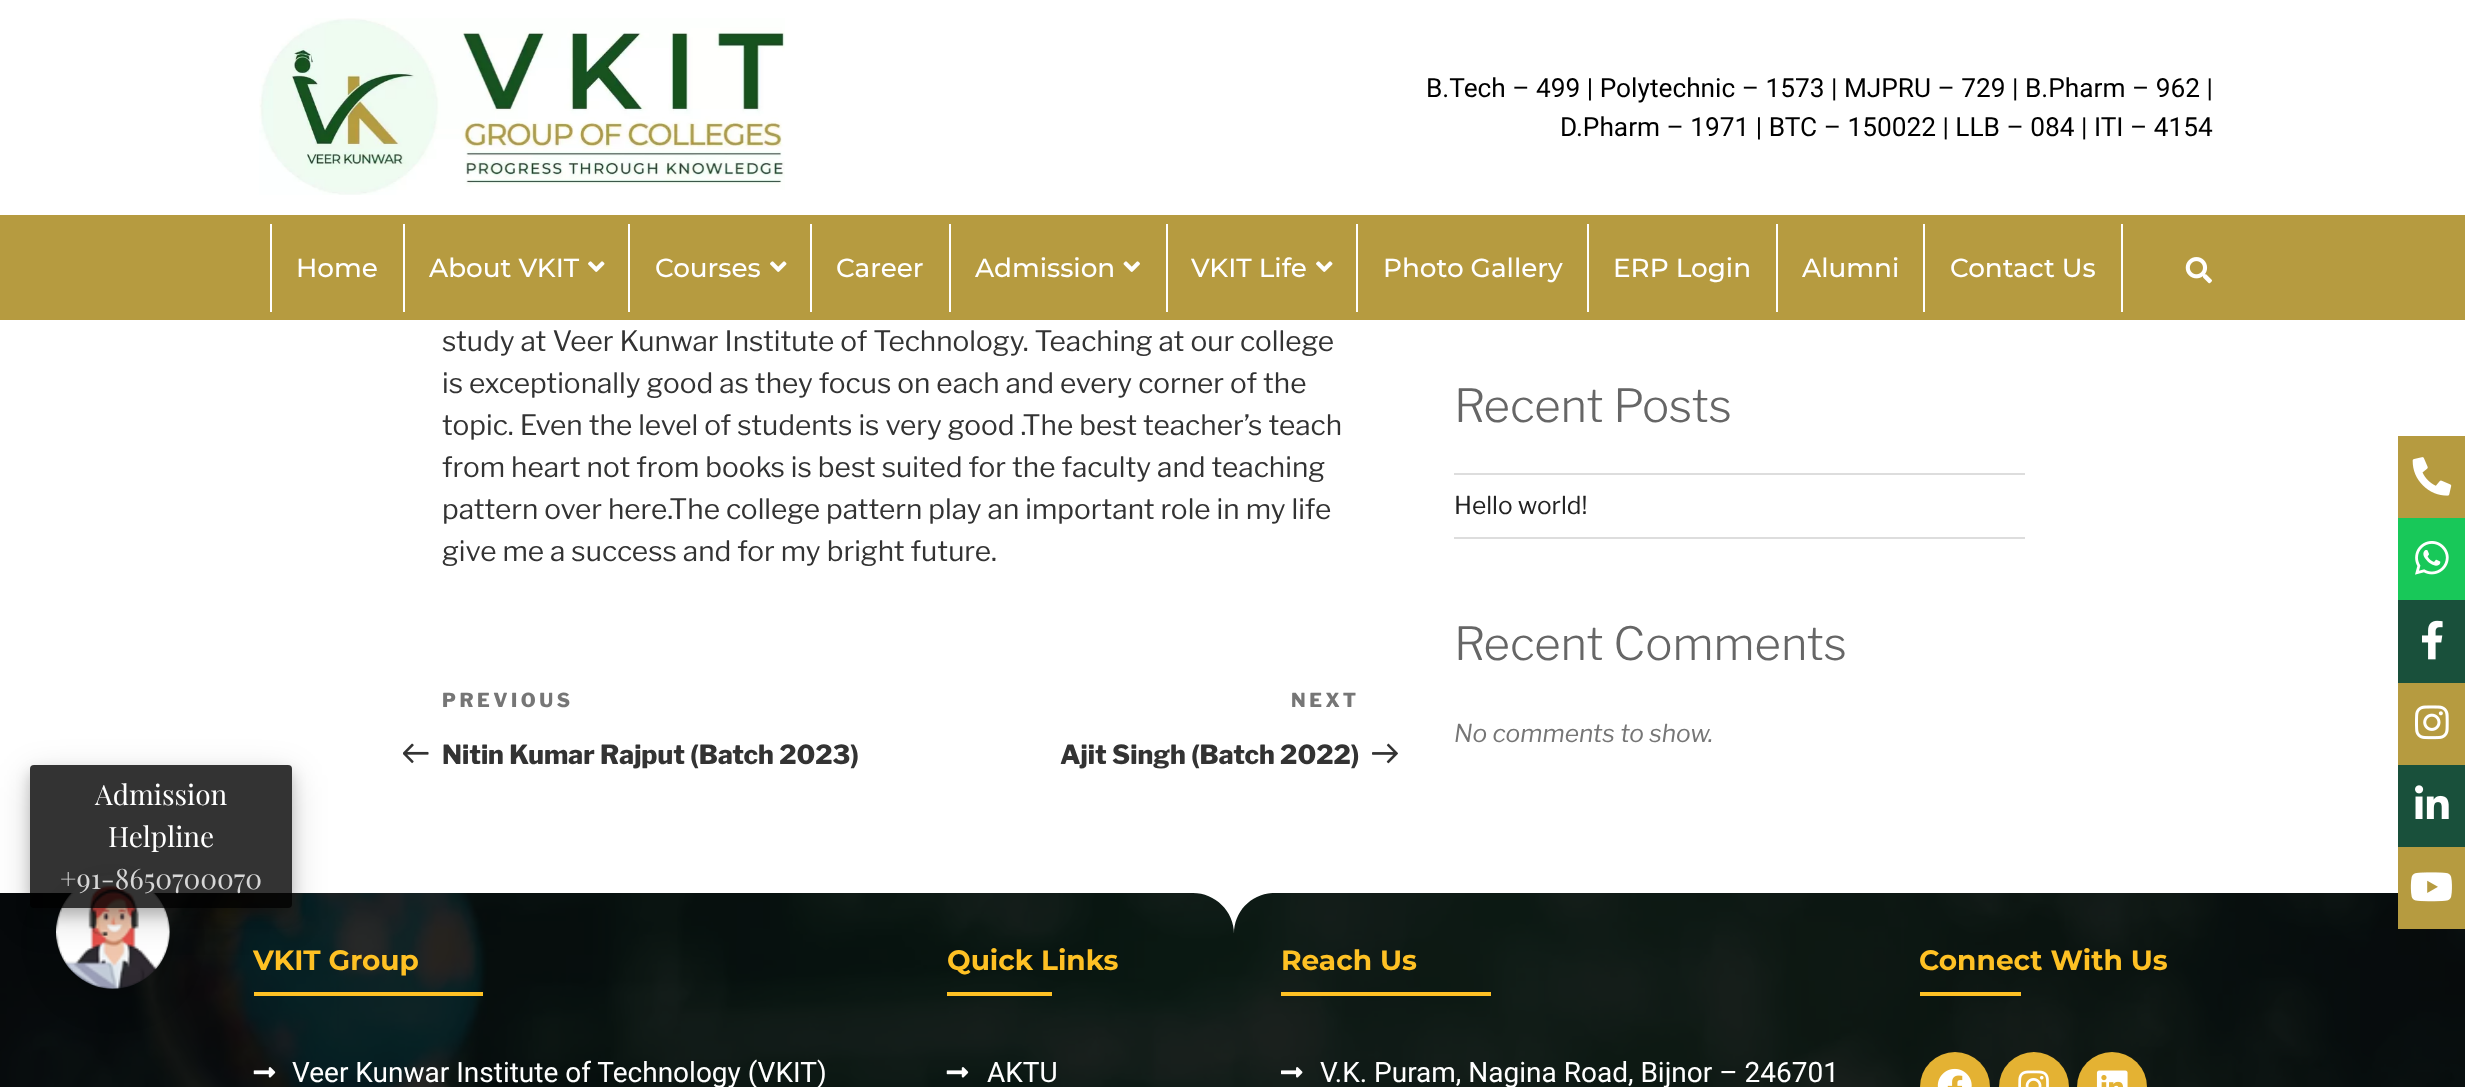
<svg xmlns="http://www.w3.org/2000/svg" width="2465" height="1087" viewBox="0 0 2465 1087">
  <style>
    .t1 { font: 26.25px Roboto; fill: #000; }
    .t2 { font: 500 26.25px Montserrat; fill: #fff; }
    .t3 { font: 100 28px 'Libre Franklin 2'; fill: #333; }
    .t4 { font: 100 19.25px Libre Franklin; letter-spacing: 3.5px; fill: #767676; }
    .t5 { font: 100 26.25px Libre Franklin; fill: #333; }
    .t6 { font: 100 45.5px 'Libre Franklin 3'; fill: #666; }
    .t7 { font: 100 24.5px 'Libre Franklin 2'; fill: #222; }
    .t8 { font: italic 100 24.5px Libre Franklin; fill: #767676; }
    .t9 { font: 28px Playfair Display; fill: #fff; }
    .t10 { font: 28px Playfair Display; fill: #d6d6d6; }
    .t11 { font: bold 28px Montserrat; fill: #ffc124; }
    .t12 { font: 28px Roboto; fill: #fff; }
  </style>
  <defs>
    <clipPath id="clip1"><path d="M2 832H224V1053H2ZM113 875C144.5 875 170 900.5 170 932C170 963.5 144.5 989 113 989C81.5 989 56 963.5 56 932C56 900.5 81.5 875 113 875Z" clip-rule="evenodd"/></clipPath>
    <clipPath id="clip2"><path d="M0 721H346V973H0ZM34 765H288C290 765 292 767 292 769V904C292 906 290 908 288 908H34C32 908 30 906 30 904V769C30 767 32 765 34 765Z" clip-rule="evenodd"/></clipPath>
    <clipPath id="clip3"><path d="M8 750H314V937H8ZM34 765H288C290 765 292 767 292 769V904C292 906 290 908 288 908H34C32 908 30 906 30 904V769C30 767 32 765 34 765Z" clip-rule="evenodd"/></clipPath>
  </defs>
  <rect width="100%" height="100%" fill="#fff"/>
  <image x="259" y="18" width="526" height="177" href="images/1.png"/>
  <text x="1426" y="97" class="t1">B.Tech – 499 | Polytechnic – 1573 | MJPRU – 729 | B.Pharm – 962 |</text>
  <text x="1560" y="136" class="t1">D.Pharm – 1971 | BTC – 150022 | LLB – 084 | ITI – 4154</text>
  <rect x="0" y="215" width="2465" height="105" fill="#b69b40"/>
  <rect x="403" y="224" width="2" height="88" fill="#fff"/>
  <rect x="270" y="224" width="2" height="88" fill="#fff"/>
  <text x="296" y="277" class="t2">Home</text>
  <rect x="628" y="224" width="2" height="88" fill="#fff"/>
  <text x="429" y="277" class="t2">About VKIT</text>
  <image x="588" y="261" width="17" height="11" href="images/2.png"/>
  <rect x="810" y="224" width="2" height="88" fill="#fff"/>
  <text x="655" y="277" class="t2">Courses</text>
  <image x="770" y="261" width="17" height="11" href="images/2.png"/>
  <rect x="949" y="224" width="2" height="88" fill="#fff"/>
  <text x="836" y="277" class="t2">Career</text>
  <rect x="1166" y="224" width="2" height="88" fill="#fff"/>
  <text x="975" y="277" class="t2">Admission</text>
  <image x="1123" y="261" width="17" height="11" href="images/3.png"/>
  <rect x="1356" y="224" width="2" height="88" fill="#fff"/>
  <text x="1191" y="277" class="t2">VKIT Life</text>
  <image x="1316" y="261" width="17" height="11" href="images/2.png"/>
  <rect x="1587" y="224" width="2" height="88" fill="#fff"/>
  <text x="1383" y="277" class="t2">Photo Gallery</text>
  <rect x="1776" y="224" width="2" height="88" fill="#fff"/>
  <text x="1613" y="277" class="t2">ERP Login</text>
  <rect x="1923" y="224" width="2" height="88" fill="#fff"/>
  <text x="1802" y="277" class="t2">Alumni</text>
  <rect x="2121" y="224" width="2" height="88" fill="#fff"/>
  <text x="1950" y="277" class="t2">Contact Us</text>
  <image x="2185" y="257" width="27" height="27" href="images/4.png"/>
  <text x="442" y="351" class="t3">study at Veer Kunwar Institute of Technology. Teaching at our college</text>
  <text x="442" y="393" class="t3">is exceptionally good as they focus on each and every corner of the</text>
  <text x="442" y="435" class="t3">topic. Even the level of students is very good .The best teacher’s teach</text>
  <text x="442" y="477" class="t3">from heart not from books is best suited for the faculty and teaching</text>
  <text x="442" y="519" class="t3">pattern over here.The college pattern play an important role in my life</text>
  <text x="442" y="561" class="t3">give me a success and for my bright future.</text>
  <text x="442" y="707" class="t4">PREVIOUS</text>
  <image x="403" y="743" width="26" height="21" href="images/5.png"/>
  <text x="442" y="764" class="t5">Nitin Kumar Rajput (Batch 2023)</text>
  <text x="1291" y="707" class="t4">NEXT</text>
  <text x="1060" y="764" class="t5">Ajit Singh (Batch 2022)</text>
  <image x="1372" y="743" width="26" height="21" href="images/6.png"/>
  <text x="1454" y="422" class="t6">Recent Posts</text>
  <rect x="1454" y="473" width="571" height="2" fill="#ddd"/>
  <rect x="1454" y="537" width="571" height="2" fill="#ddd"/>
  <text x="1454" y="514" class="t7">Hello world!</text>
  <text x="1454" y="660" class="t6">Recent Comments</text>
  <text x="1454" y="742" class="t8">No comments to show.</text>
  <image x="0" y="893" width="2465" height="194" href="images/14.png"/>
  <path d="M0 886V893H1193C1215 893 1234 911 1234 934C1234 911 1252 893 1275 893H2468V886Z" fill="#fff"/>
  <g clip-path="url(#clip1)">
    <rect x="56" y="886" width="114" height="113" rx="56.5" fill="#00000030" filter="blur(17.5px)"/>
  </g>
  <image x="56" y="885" width="114" height="104" href="images/7.png"/>
  <g clip-path="url(#clip2)">
    <rect x="30" y="775" width="262" height="144" rx="4" fill="#00000029" filter="blur(17.5px)"/>
  </g>
  <g clip-path="url(#clip3)">
    <rect x="30" y="772" width="262" height="143" rx="4" fill="#00000033" filter="blur(7px)"/>
  </g>
  <rect x="30" y="765" width="262" height="143" rx="4" fill="#000000cc"/>
  <text x="95" y="805" class="t9">Admission</text>
  <text x="108" y="847" class="t9">Helpline</text>
  <text x="60" y="889" class="t10">+91-8650700070</text>
  <rect x="2398" y="436" width="67" height="82" fill="#b69b40"/>
  <image x="2412" y="457" width="40" height="39" href="images/8.png"/>
  <rect x="2398" y="518" width="67" height="82" fill="#18c859"/>
  <image x="2415" y="541" width="34" height="34" href="images/9.png"/>
  <rect x="2398" y="600" width="67" height="83" fill="#19503b"/>
  <image x="2422" y="620" width="21" height="40" href="images/10.png"/>
  <rect x="2398" y="683" width="67" height="82" fill="#b69b40"/>
  <image x="2415" y="705" width="34" height="35" href="images/11.png"/>
  <rect x="2398" y="765" width="67" height="82" fill="#19503b"/>
  <image x="2415" y="785" width="34" height="34" href="images/12.png"/>
  <rect x="2398" y="847" width="67" height="82" fill="#b69b40"/>
  <image x="2410" y="872" width="42" height="30" href="images/13.png"/>
  <text x="253" y="970" class="t11">VKIT Group</text>
  <rect x="254" y="992" width="229" height="4" fill="#ffc124"/>
  <image x="253" y="1067" width="23" height="11" href="images/15.png"/>
  <text x="292" y="1082" class="t12">Veer Kunwar Institute of Technology (VKIT)</text>
  <text x="947" y="970" class="t11">Quick Links</text>
  <rect x="947" y="992" width="105" height="4" fill="#ffc124"/>
  <image x="946" y="1067" width="23" height="11" href="images/16.png"/>
  <text x="987" y="1082" class="t12">AKTU</text>
  <text x="1281" y="970" class="t11">Reach Us</text>
  <rect x="1281" y="992" width="210" height="4" fill="#ffc124"/>
  <image x="1281" y="1067" width="22" height="11" href="images/17.png"/>
  <text x="1320" y="1082" class="t12">V.K. Puram, Nagina Road, Bijnor – 246701</text>
  <text x="1919" y="970" class="t11">Connect With Us</text>
  <rect x="1920" y="992" width="101" height="4" fill="#ffc124"/>
  <circle cx="1955" cy="1087" r="35" fill="#e4b233"/>
  <image x="1937" y="1068" width="35" height="19" href="images/18.png"/>
  <circle cx="2034" cy="1087" r="35" fill="#e4b233"/>
  <image x="2018" y="1070" width="31" height="17" href="images/19.png"/>
  <circle cx="2112" cy="1087" r="35" fill="#e4b233"/>
  <image x="2096" y="1070" width="32" height="17" href="images/20.png"/>
</svg>
